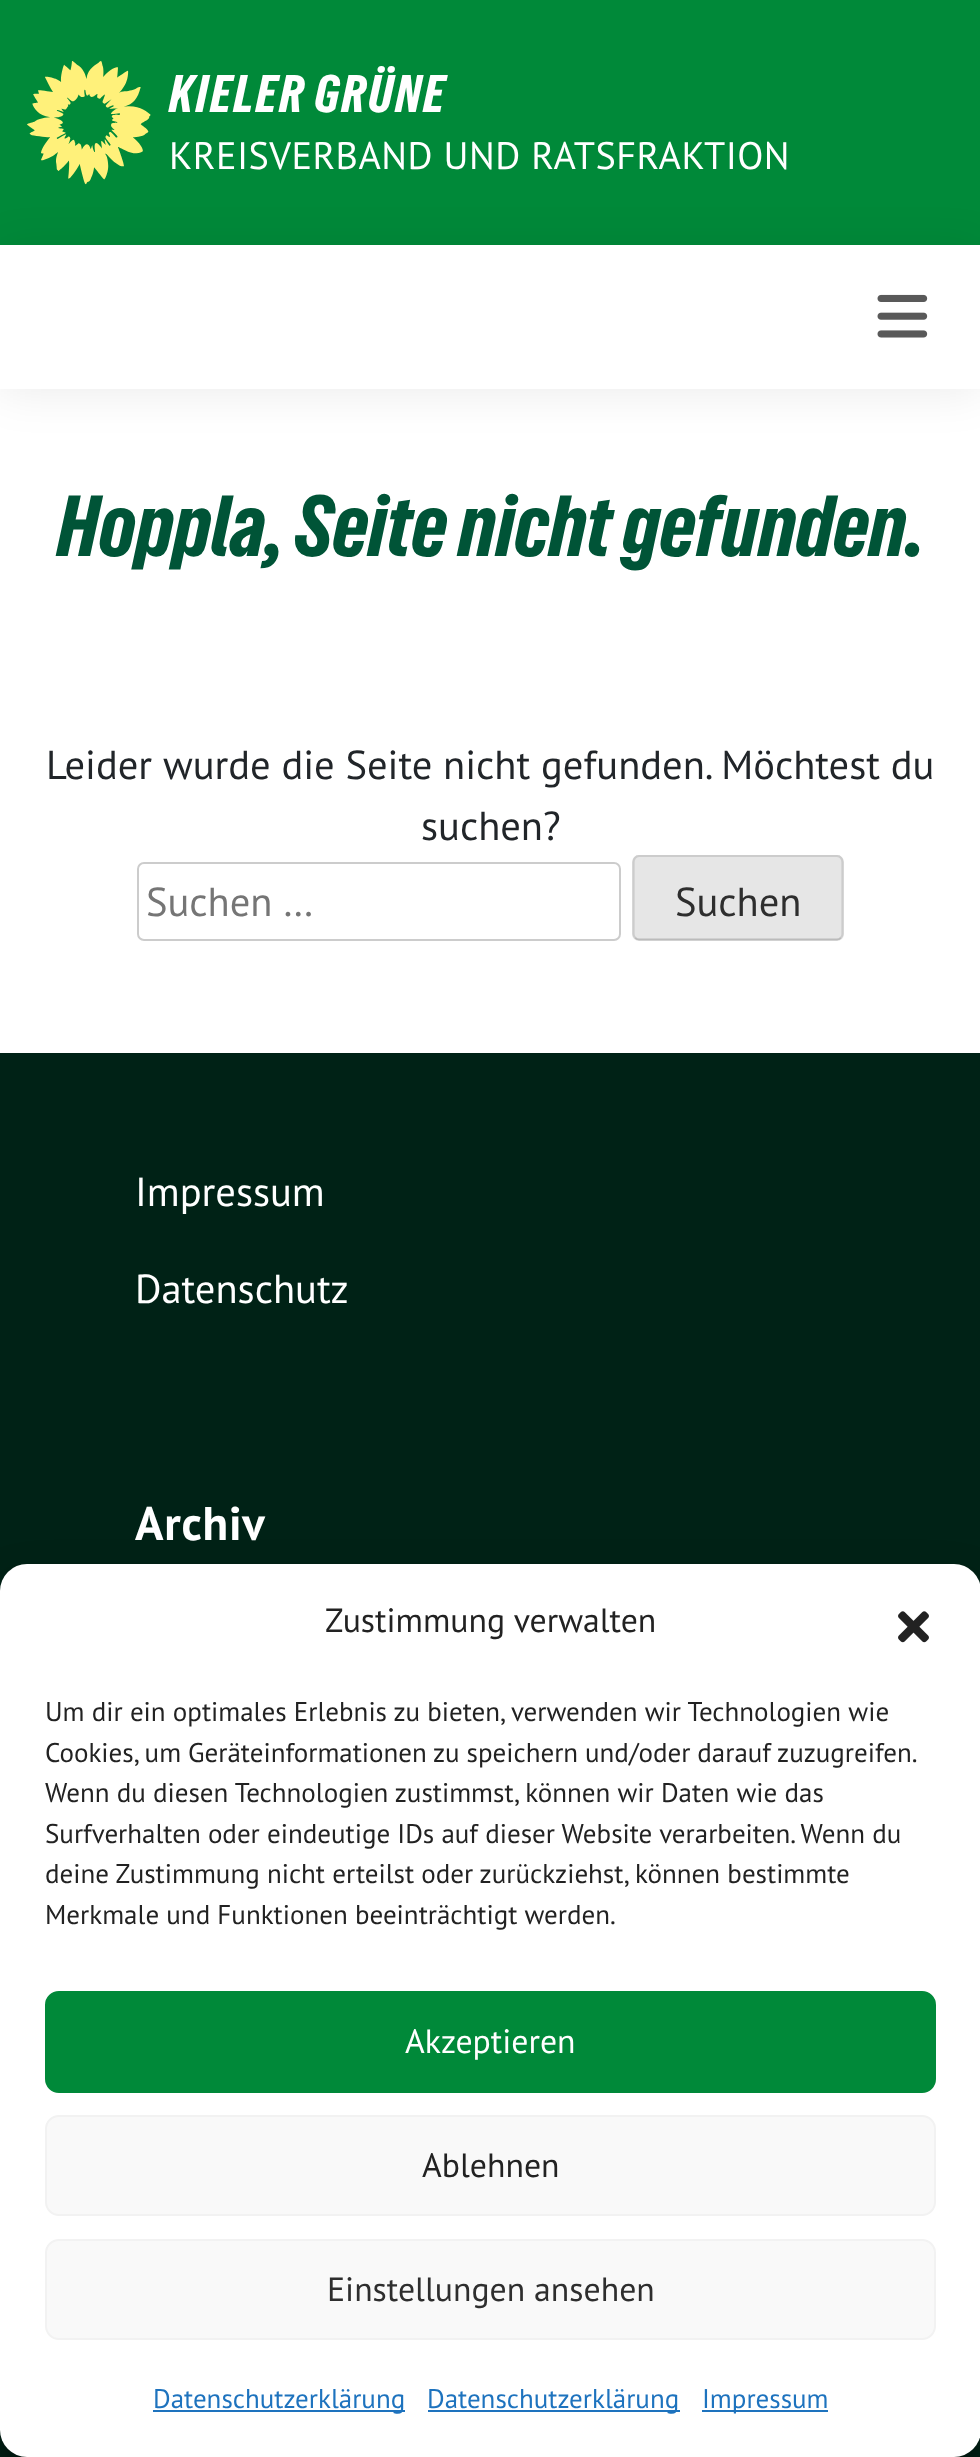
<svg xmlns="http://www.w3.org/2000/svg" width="980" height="2457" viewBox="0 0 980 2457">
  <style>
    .t1 { font: 49.5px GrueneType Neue; letter-spacing: 2.25px; fill: #fff; }
    .t2 { font: 38.25px PT Sans; letter-spacing: 0.45px; fill: #fff; }
    .t3 { font: 81px GrueneType Neue; fill: #005437; }
    .t4 { font: 40.5px PT Sans; fill: #212529; }
    .t5 { font: 40.5px PT Sans; fill: #757575; }
    .t6 { font: 40.5px PT Sans; fill: #2e2e2e; }
    .t7 { font: 40.5px PT Sans; fill: #fff; }
    .t8 { font: bold 47px PT Sans; letter-spacing: 0.75px; fill: #fff; }
    .t9 { font: 33.75px PT Sans; fill: #222; }
    .t10 { font: 27px PT Sans; fill: #222; }
    .t11 { font: 33.75px PT Sans; fill: #fff; }
    .t12 { font: 33.75px PT Sans; fill: #2e2e2e; }
    .t13 { font: 27px PT Sans; fill: #1e73be; }
  </style>
  <rect width="100%" height="100%" fill="#fff"/>
  <rect x="0" y="0" width="980" height="245" fill="#008939"/>
  <image x="27" y="61" width="124" height="124" href="images/1.png"/>
  <text x="169" y="112" class="t1">KIELER GRÜNE</text>
  <text x="169" y="169" class="t2">KREISVERBAND UND RATSFRAKTION</text>
  <rect x="0" y="248" width="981" height="144" fill="#00000014" filter="blur(22.5px)"/>
  <rect x="0" y="245" width="980" height="144" fill="#fff"/>
  <image x="877" y="294" width="51" height="44" href="images/2.png"/>
  <text x="57" y="556" class="t3">Hoppla, Seite nicht gefunden.</text>
  <text x="46" y="779" class="t4">Leider wurde die Seite nicht gefunden. Möchtest du</text>
  <text x="421" y="840" class="t4">suchen?</text>
  <rect x="138" y="863" width="482" height="77" rx="6" fill="none" stroke="#ccc" stroke-width="2"/>
  <text x="146" y="916" class="t5">Suchen …</text>
  <rect x="632" y="855" width="212" height="86" rx="7" fill="#e6e6e6"/>
  <path d="M841 937.5C840 939 838.5 939.5 837 939.5H639C637.5 939.5 636 939 635 937.5" fill="none" stroke="#bbb" stroke-width="2.2"/>
  <path d="M635 937.5C634 936.5 633.5 935 633.5 934V862C633.5 860.5 634 859 635 858C636 856.5 637.5 856 639 856H837C838.5 856 840 856.5 841 858C842 859 842.5 860.5 842.5 862V934C842.5 935 842 936.5 841 937.5" fill="none" stroke="#ccc" stroke-width="2.2"/>
  <text x="675" y="916" class="t6">Suchen</text>
  <rect x="0" y="1053" width="980" height="538" fill="#002216"/>
  <text x="135" y="1206" class="t7">Impressum</text>
  <text x="135" y="1303" class="t7">Datenschutz</text>
  <text x="135" y="1540" class="t8">Archiv</text>
  <rect x="0" y="2430" width="980" height="27" fill="#002216"/>
  <rect x="0" y="1577" width="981" height="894" rx="27" fill="#0000003b" filter="blur(7px)"/>
  <rect x="0" y="1586" width="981" height="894" rx="27" fill="#00000030" filter="blur(22.5px)"/>
  <rect x="0" y="1564" width="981" height="893" rx="27" fill="#fff"/>
  <text x="325" y="1632" class="t9">Zustimmung verwalten</text>
  <image x="898" y="1611" width="31" height="32" href="images/3.png"/>
  <text x="45" y="1721" class="t10">Um dir ein optimales Erlebnis zu bieten, verwenden wir Technologien wie</text>
  <text x="45" y="1762" word-spacing="-0.25" class="t10">Cookies, um Geräteinformationen zu speichern und/oder darauf zuzugreifen.</text>
  <text x="45" y="1802" class="t10">Wenn du diesen Technologien zustimmst, können wir Daten wie das</text>
  <text x="45" y="1843" class="t10">Surfverhalten oder eindeutige IDs auf dieser Website verarbeiten. Wenn du</text>
  <text x="45" y="1883" class="t10">deine Zustimmung nicht erteilst oder zurückziehst, können bestimmte</text>
  <text x="45" y="1924" class="t10">Merkmale und Funktionen beeinträchtigt werden.</text>
  <rect x="46" y="1992" width="889" height="100" rx="13" fill="#008939" stroke="#008939" stroke-width="2"/>
  <text x="405" y="2053" class="t11">Akzeptieren</text>
  <rect x="46" y="2116" width="889" height="99" rx="13" fill="#f9f9f9" stroke="#f2f2f2" stroke-width="2"/>
  <text x="422" y="2177" class="t9">Ablehnen</text>
  <rect x="46" y="2240" width="889" height="99" rx="13" fill="#f9f9f9" stroke="#f2f2f2" stroke-width="2"/>
  <text x="327" y="2301" class="t12">Einstellungen ansehen</text>
  <rect x="153" y="2410" width="252" height="2" fill="#1e73be"/>
  <text x="153" y="2408" class="t13">Datenschutzerklärung</text>
  <rect x="428" y="2410" width="252" height="2" fill="#1e73be"/>
  <text x="427" y="2408" class="t13">Datenschutzerklärung</text>
  <rect x="702" y="2410" width="126" height="2" fill="#1e73be"/>
  <text x="702" y="2408" class="t13">Impressum</text>
</svg>
